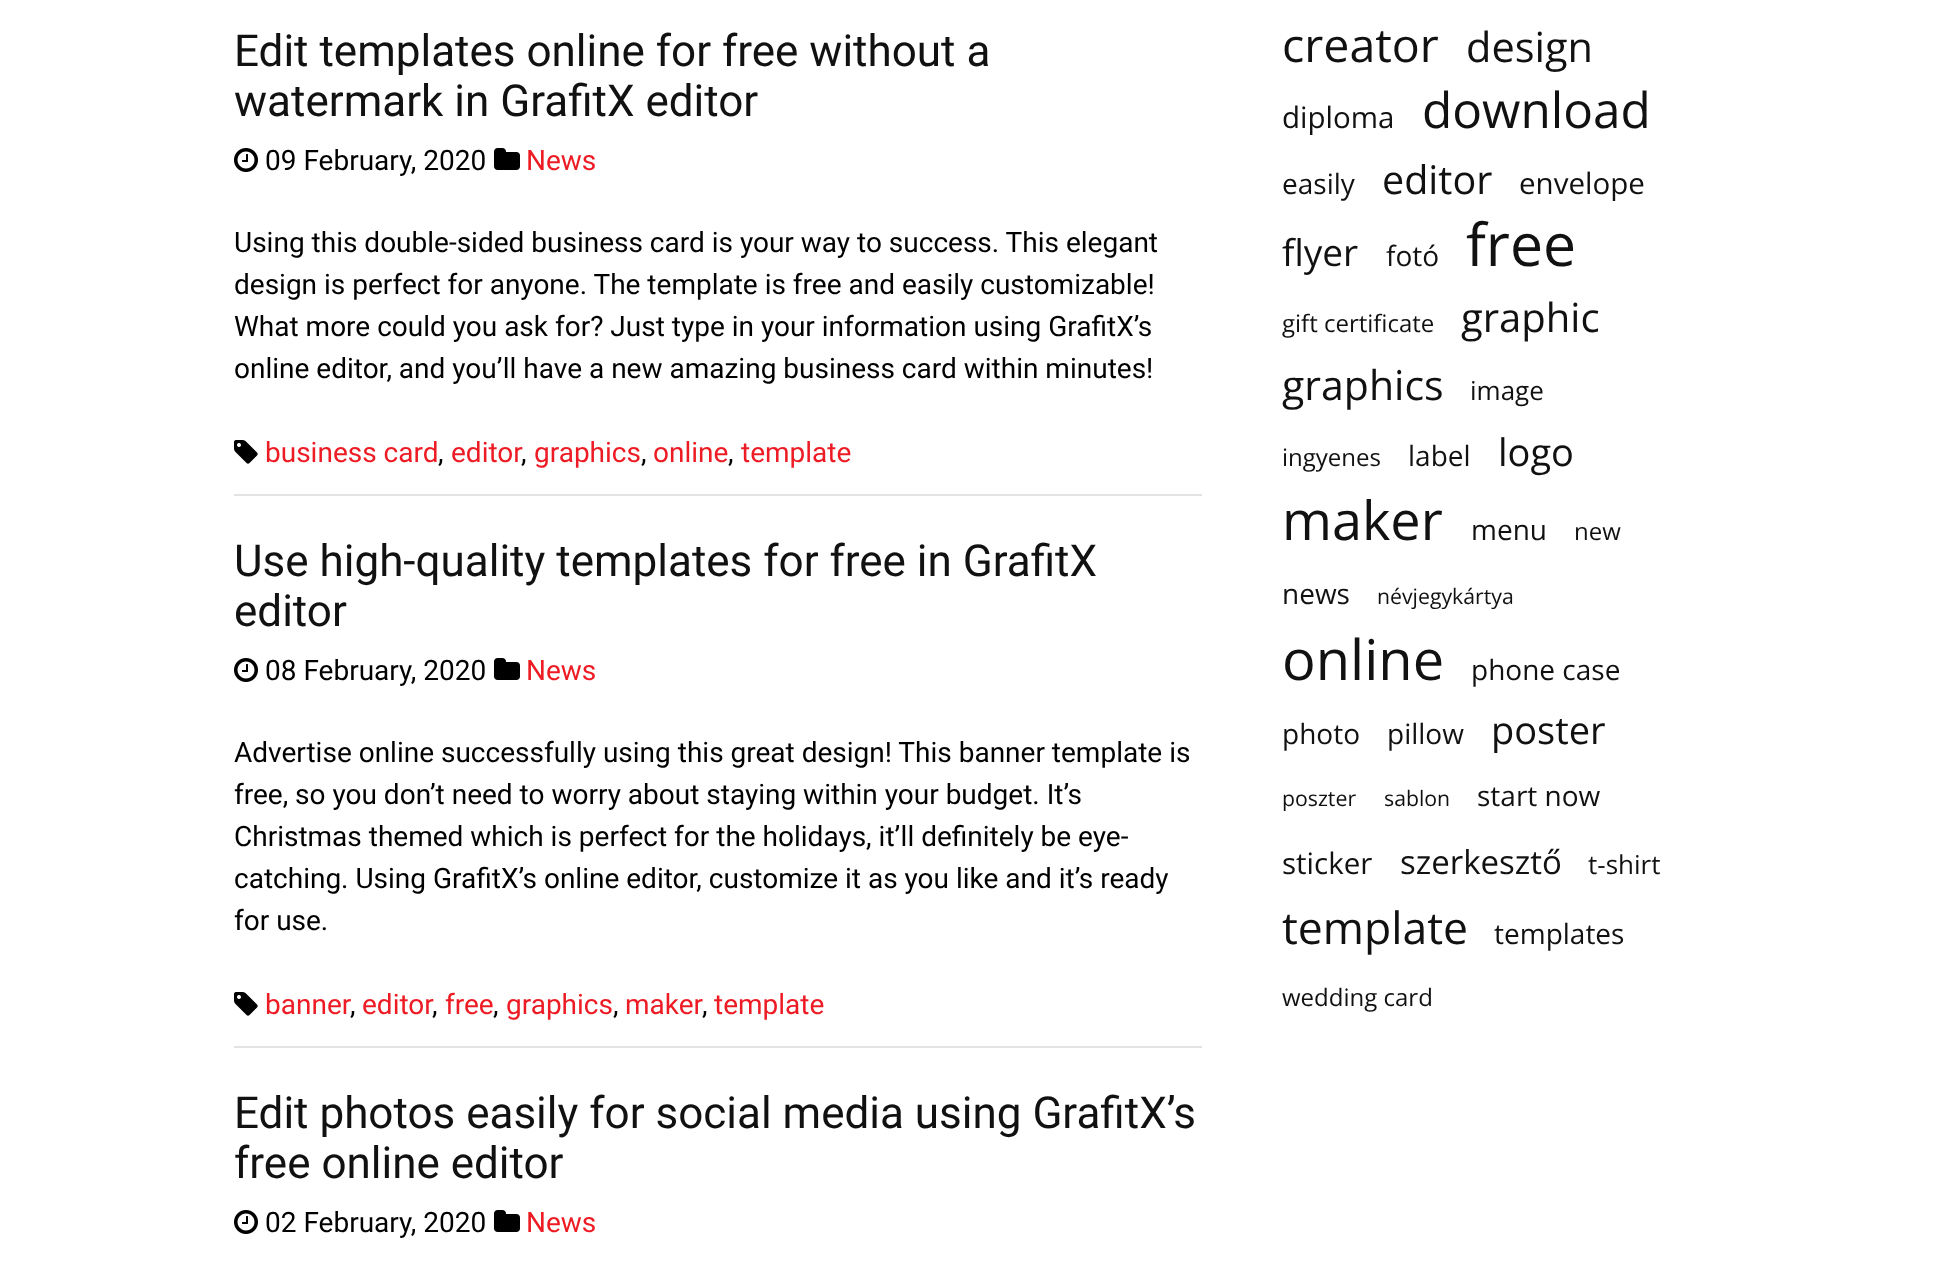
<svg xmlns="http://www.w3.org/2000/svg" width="1948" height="1275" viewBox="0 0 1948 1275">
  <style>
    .t1 { font: 44px Roboto; fill: #111; }
    .t2 { font: 28px Roboto; fill: #000; }
    .t3 { font: 28px Roboto; fill: #ed1c24; }
    .t4 { font: 46.5px Open Sans; fill: #111; }
    .t5 { font: 41.5px Open Sans; fill: #111; }
    .t6 { font: 29.5px Open Sans; fill: #111; }
    .t7 { font: 49.5px Open Sans; fill: #111; }
    .t8 { font: 28px Open Sans; fill: #111; }
    .t9 { font: 39.5px Open Sans; fill: #111; }
    .t10 { font: 37px Open Sans; fill: #111; }
    .t11 { font: 59px Open Sans; fill: #111; }
    .t12 { font: 24px Open Sans; fill: #111; }
    .t13 { font: 40px Open Sans; fill: #111; }
    .t14 { font: 41px Open Sans; fill: #111; }
    .t15 { font: 26px Open Sans; fill: #111; }
    .t16 { font: 38px Open Sans; fill: #111; }
    .t17 { font: 54px Open Sans; fill: #111; }
    .t18 { font: 21.25px Open Sans; fill: #111; }
    .t19 { font: 56px Open Sans; fill: #111; }
    .t20 { font: 33px Open Sans; fill: #111; }
    .t21 { font: 44.5px Open Sans; fill: #111; }
  </style>
  <rect width="100%" height="100%" fill="#fff"/>
  <rect x="234" y="494" width="968" height="2" fill="#e3e3e3"/>
  <text x="234" y="66" class="t1">Edit templates online for free without a</text>
  <text x="234" y="116" class="t1">watermark in GrafitX editor</text>
  <image x="234" y="148" width="24" height="24" href="images/1.png"/>
  <text x="265" y="170" class="t2">09 February, 2020</text>
  <image x="494" y="148" width="26" height="22" href="images/2.png"/>
  <text x="526" y="170" class="t3">News</text>
  <text x="234" y="252" class="t2">Using this double-sided business card is your way to success. This elegant</text>
  <text x="234" y="294" class="t2">design is perfect for anyone. The template is free and easily customizable!</text>
  <text x="234" y="336" class="t2">What more could you ask for? Just type in your information using GrafitX’s</text>
  <text x="234" y="378" class="t2">online editor, and you’ll have a new amazing business card within minutes!</text>
  <image x="234" y="440" width="24" height="24" href="images/3.png"/>
  <text x="265" y="462" class="t3">business card</text>
  <text x="438" y="462" class="t2">,</text>
  <text x="451" y="462" class="t3">editor</text>
  <text x="521" y="462" class="t2">,</text>
  <text x="534" y="462" class="t3">graphics</text>
  <text x="641" y="462" class="t2">,</text>
  <text x="653" y="462" class="t3">online</text>
  <text x="728" y="462" class="t2">,</text>
  <text x="741" y="462" class="t3">template</text>
  <rect x="234" y="1046" width="968" height="2" fill="#e3e3e3"/>
  <text x="234" y="576" class="t1">Use high-quality templates for free in GrafitX</text>
  <text x="234" y="626" class="t1">editor</text>
  <image x="234" y="658" width="24" height="24" href="images/1.png"/>
  <text x="265" y="680" class="t2">08 February, 2020</text>
  <image x="494" y="658" width="26" height="22" href="images/2.png"/>
  <text x="526" y="680" class="t3">News</text>
  <text x="234" y="762" class="t2">Advertise online successfully using this great design! This banner template is</text>
  <text x="234" y="804" class="t2">free, so you don’t need to worry about staying within your budget. It’s</text>
  <text x="234" y="846" class="t2">Christmas themed which is perfect for the holidays, it’ll definitely be eye-</text>
  <text x="234" y="888" class="t2">catching. Using GrafitX’s online editor, customize it as you like and it’s ready</text>
  <text x="234" y="930" class="t2">for use.</text>
  <image x="234" y="992" width="24" height="24" href="images/3.png"/>
  <text x="265" y="1014" class="t3">banner</text>
  <text x="350" y="1014" class="t2">,</text>
  <text x="362" y="1014" class="t3">editor</text>
  <text x="432" y="1014" class="t2">,</text>
  <text x="445" y="1014" class="t3">free</text>
  <text x="493" y="1014" class="t2">,</text>
  <text x="506" y="1014" class="t3">graphics</text>
  <text x="613" y="1014" class="t2">,</text>
  <text x="625" y="1014" class="t3">maker</text>
  <text x="702" y="1014" class="t2">,</text>
  <text x="714" y="1014" class="t3">template</text>
  <text x="234" y="1128" class="t1">Edit photos easily for social media using GrafitX’s</text>
  <text x="234" y="1178" class="t1">free online editor</text>
  <image x="234" y="1210" width="24" height="24" href="images/1.png"/>
  <text x="265" y="1232" class="t2">02 February, 2020</text>
  <image x="494" y="1210" width="26" height="22" href="images/2.png"/>
  <text x="526" y="1232" class="t3">News</text>
  <text x="1282" y="62" class="t4">creator</text>
  <text x="1466" y="62" class="t5">design</text>
  <text x="1282" y="128" class="t6">diploma</text>
  <text x="1422" y="128" class="t7">download</text>
  <text x="1282" y="194" class="t8">easily</text>
  <text x="1382" y="194" class="t9">editor</text>
  <text x="1519" y="194" class="t6">envelope</text>
  <text x="1282" y="266" class="t10">flyer</text>
  <text x="1386" y="266" class="t8">fotó</text>
  <text x="1466" y="266" class="t11">free</text>
  <text x="1282" y="332" class="t12">gift certificate</text>
  <text x="1461" y="332" class="t13">graphic</text>
  <text x="1282" y="400" class="t14">graphics</text>
  <text x="1470" y="400" class="t15">image</text>
  <text x="1282" y="466" class="t12">ingyenes</text>
  <text x="1408" y="466" class="t8">label</text>
  <text x="1498" y="466" class="t16">logo</text>
  <text x="1282" y="540" class="t17">maker</text>
  <text x="1471" y="540" class="t8">menu</text>
  <text x="1574" y="540" class="t12">new</text>
  <text x="1282" y="604" class="t8">news</text>
  <text x="1377" y="604" class="t18">névjegykártya</text>
  <text x="1282" y="680" class="t19">online</text>
  <text x="1471" y="680" class="t8">phone case</text>
  <text x="1282" y="744" class="t8">photo</text>
  <text x="1387" y="744" class="t8">pillow</text>
  <text x="1491" y="744" class="t16">poster</text>
  <text x="1282" y="806" class="t18">poszter</text>
  <text x="1384" y="806" class="t18">sablon</text>
  <text x="1477" y="806" class="t8">start now</text>
  <text x="1282" y="874" class="t6">sticker</text>
  <text x="1400" y="874" class="t20">szerkesztő</text>
  <text x="1588" y="874" class="t15">t-shirt</text>
  <text x="1282" y="944" class="t21">template</text>
  <text x="1494" y="944" class="t8">templates</text>
  <text x="1282" y="1006" class="t12">wedding card</text>
</svg>
